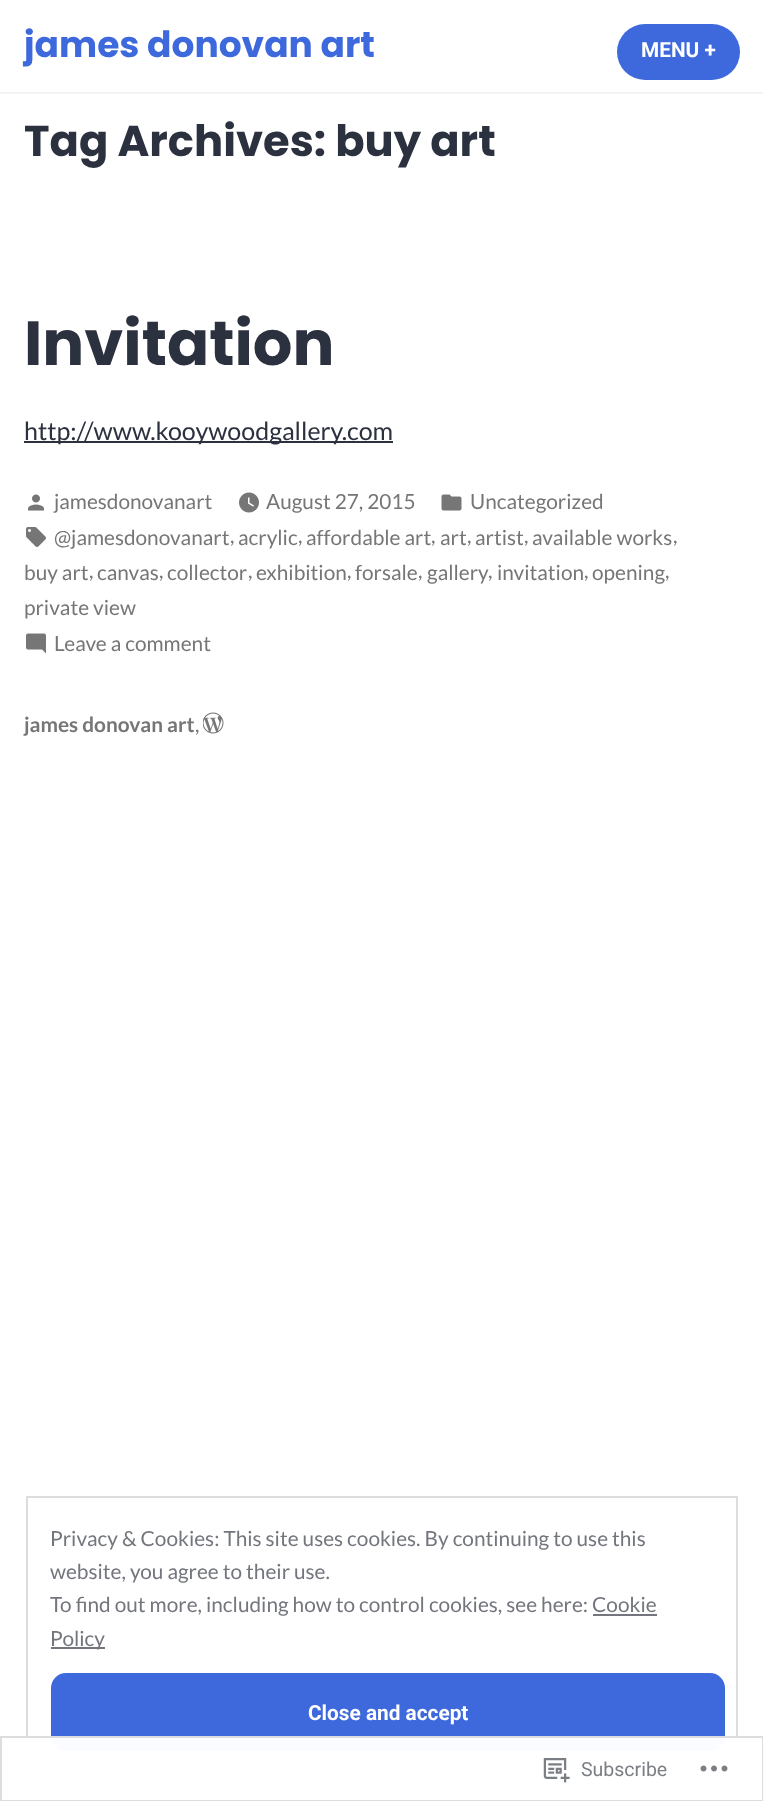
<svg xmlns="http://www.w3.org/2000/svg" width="763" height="1801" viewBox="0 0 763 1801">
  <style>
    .t1 { font: bold 36px Poppins; fill: #3e69dc; }
    .t2 { font: bold 20.8px Roboto; fill: #fff; }
    .t3 { font: bold 43.25px Poppins; fill: #2c313f; }
    .t4 { font: bold 62.25px Poppins; fill: #2c313f; }
    .t5 { font: 25px Lato; fill: #2c313f; }
    .t6 { font: 20.8px Lato; fill: #767676; }
    .t7 { font: bold 20.8px Lato; fill: #767676; }
    .t8 { font: 20.8px Lato; fill: #74767e; }
    .t9 { font: 19.5px Roboto; fill: #7b7f84; }
  </style>
  <rect width="100%" height="100%" fill="#fff"/>
  <rect x="0" y="92" width="763" height="2" fill="#f3f3f3"/>
  <text x="24" y="57" class="t1">james donovan art</text>
  <rect x="617" y="24" width="123" height="56" rx="28" fill="#3e69dc"/>
  <text x="641" y="57" class="t2">MENU +</text>
  <text x="24" y="156" class="t3">Tag Archives: buy art</text>
  <text x="24" y="365" class="t4">Invitation</text>
  <rect x="24" y="441" width="369" height="2" fill="#2c313f"/>
  <text x="24" y="440" class="t5">http://www.kooywoodgallery.com</text>
  <image x="28" y="494" width="16" height="17" href="images/1.png"/>
  <text x="54" y="509" class="t6">jamesdonovanart</text>
  <image x="239" y="492" width="20" height="21" href="images/2.png"/>
  <text x="266" y="509" class="t6">August 27, 2015</text>
  <image x="441" y="494" width="21" height="17" href="images/3.png"/>
  <text x="470" y="509" class="t6">Uncategorized</text>
  <image x="26" y="527" width="20" height="20" href="images/4.png"/>
  <text x="54" y="545" class="t6">@jamesdonovanart</text>
  <text x="230" y="543" class="t6">,</text>
  <text x="238" y="545" class="t6">acrylic</text>
  <text x="298" y="543" class="t6">,</text>
  <text x="306" y="545" class="t6">affordable art</text>
  <text x="431" y="543" class="t6">,</text>
  <text x="440" y="545" class="t6">art</text>
  <text x="467" y="543" class="t6">,</text>
  <text x="475" y="545" class="t6">artist</text>
  <text x="524" y="543" class="t6">,</text>
  <text x="532" y="545" class="t6">available works</text>
  <text x="673" y="543" class="t6">,</text>
  <text x="24" y="580" class="t6">buy art</text>
  <text x="89" y="578" class="t6">,</text>
  <text x="97" y="580" class="t6">canvas</text>
  <text x="159" y="578" class="t6">,</text>
  <text x="167" y="580" class="t6">collector</text>
  <text x="248" y="578" class="t6">,</text>
  <text x="256" y="580" class="t6">exhibition</text>
  <text x="347" y="578" class="t6">,</text>
  <text x="355" y="580" class="t6">forsale</text>
  <text x="418" y="578" class="t6">,</text>
  <text x="427" y="580" class="t6">gallery</text>
  <text x="488" y="578" class="t6">,</text>
  <text x="497" y="580" class="t6">invitation</text>
  <text x="584" y="578" class="t6">,</text>
  <text x="592" y="580" class="t6">opening</text>
  <text x="665" y="578" class="t6">,</text>
  <text x="24" y="615" class="t6">private view</text>
  <image x="26" y="633" width="20" height="21" href="images/5.png"/>
  <text x="54" y="651" class="t6">Leave a comment</text>
  <text x="24" y="732" class="t7">james donovan art</text>
  <text x="195" y="732" class="t6">,</text>
  <image x="203" y="712" width="21" height="22" href="images/6.png"/>
  <rect x="27" y="1497" width="710" height="278" fill="none" stroke="#ddd" stroke-width="2"/>
  <text x="50" y="1546" class="t8">Privacy &amp; Cookies: This site uses cookies. By continuing to use this</text>
  <text x="50" y="1579" class="t8">website, you agree to their use.</text>
  <text x="50" y="1612" class="t8">To find out more, including how to control cookies, see here: Cookie</text>
  <rect x="51" y="1647" width="54" height="2" fill="#74767e"/>
  <text x="50" y="1646" class="t8">Policy</text>
  <rect x="593" y="1614" width="64" height="2" fill="#74767e"/>
  <rect x="51" y="1673" width="674" height="78" rx="15" fill="#3e69dc"/>
  <text x="308" y="1720" class="t2">Close and accept</text>
  <rect x="26" y="1736" width="712" height="40" fill="#fffffffa"/>
  <rect x="1" y="1737" width="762" height="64" fill="none" stroke="#dcdcdefa" stroke-width="2"/>
  <image x="543" y="1758" width="27" height="25" href="images/7.png"/>
  <text x="581" y="1776" class="t9">Subscribe</text>
  <image x="700" y="1765" width="28" height="7" href="images/8.png"/>
</svg>
